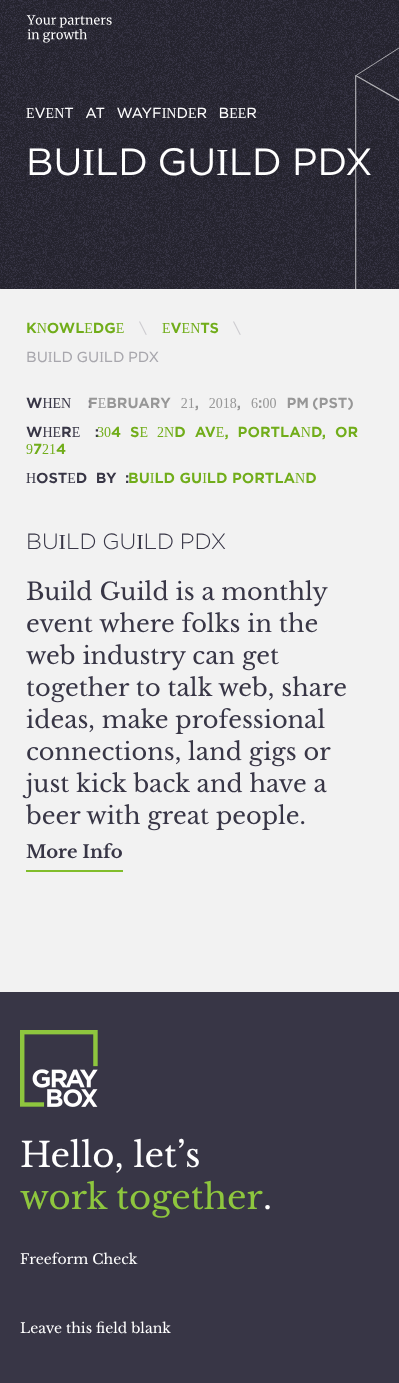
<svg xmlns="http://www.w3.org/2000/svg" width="399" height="1383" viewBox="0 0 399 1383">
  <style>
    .t1 { font: 300 14px 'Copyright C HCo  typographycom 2'; fill: #fff; }
    .t2 { font: 300 38px 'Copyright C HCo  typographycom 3'; fill: #fff; }
    .t3 { font: 14px 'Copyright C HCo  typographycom'; fill: #71ad1a; }
    .t4 { font: 300 14px 'Copyright C HCo  typographycom 2'; fill: #cdccd0; }
    .t5 { font: 300 14px 'Copyright C HCo  typographycom 2'; fill: #a8a7ad; }
    .t6 { font: 14px 'Copyright C HCo  typographycom'; fill: #383646; }
    .t7 { font: 14px 'Copyright C HCo  typographycom'; fill: #979797; }
    .t8 { font: 300 22px 'Copyright C HCo  typographycom'; fill: #383646; }
    .t9 { font: 24px Libre Baskerville; fill: #383646; }
    .t10 { font: bold 18px Libre Baskerville; fill: #383646; }
    .t11 { font: 34px Libre Baskerville; fill: #fff; }
    .t12 { font: 34px Libre Baskerville; fill: #8ec63e; }
    .t13 { font: 14px Libre Baskerville; fill: #fff; }
  </style>
  <rect width="100%" height="100%" fill="#f2f2f2"/>
  <rect x="0" y="0" width="399" height="289" fill="#383646"/>
  <image x="0" y="0" width="399" height="289" href="images/2.png"/>
  <image x="26" y="15" width="86" height="28" href="images/1.png"/>
  <text x="26" y="118" word-spacing="7" class="t1">EVENT AT WAYFINDER BEER</text>
  <text x="26" y="175" word-spacing="-2" class="t2">BUILD GUILD</text>
  <image x="355" y="47" width="44" height="242" href="images/3.png"/>
  <text x="292" y="175" class="t2">PDX</text>
  <text x="26" y="333" class="t3">KNOWLEDGE</text>
  <text x="139" y="333" class="t4">\</text>
  <text x="162" y="333" class="t3">EVENTS</text>
  <text x="233" y="333" class="t4">\</text>
  <text x="26" y="362" word-spacing="-1" class="t5">BUILD GUILD PDX</text>
  <text x="26" y="408" word-spacing="12" class="t6">WHEN :</text>
  <text x="88" y="408" word-spacing="5.5" class="t7">FEBRUARY 21, 2018, 6:00 PM</text>
  <text x="312" y="408" class="t7">(PST)</text>
  <text x="26" y="437" word-spacing="10" class="t6">WHERE :</text>
  <text x="97" y="437" word-spacing="4.5" class="t3">304 SE 2ND AVE, PORTLAND, OR</text>
  <text x="26" y="454" class="t3">97214</text>
  <text x="26" y="483" word-spacing="4" class="t6">HOSTED BY :</text>
  <text x="128" y="483" class="t3">BUILD GUILD PORTLAND</text>
  <text x="26" y="549" word-spacing="-1" class="t8">BUILD GUILD PDX</text>
  <text x="26" y="600" class="t9">Build Guild is a monthly</text>
  <text x="26" y="632" class="t9">event where folks in the</text>
  <text x="26" y="664" class="t9">web industry can get</text>
  <text x="26" y="696" class="t9">together to talk web, share</text>
  <text x="26" y="728" class="t9">ideas, make professional</text>
  <text x="26" y="760" class="t9">connections, land gigs or</text>
  <text x="26" y="792" class="t9">just kick back and have a</text>
  <text x="26" y="824" class="t9">beer with great people.</text>
  <text x="26" y="858" class="t10">More Info</text>
  <rect x="26" y="870" width="97" height="2" fill="#81bd2b"/>
  <rect x="0" y="992" width="399" height="391" fill="#383646"/>
  <image x="20" y="1030" width="78" height="77" href="images/4.png"/>
  <text x="20" y="1167" class="t11">Hello, let’s</text>
  <text x="20" y="1209" word-spacing="-1" class="t12">work together</text>
  <text x="263" y="1209" class="t11">.</text>
  <text x="20" y="1264" class="t13">Freeform Check</text>
  <text x="20" y="1333" class="t13">Leave this field blank</text>
</svg>
